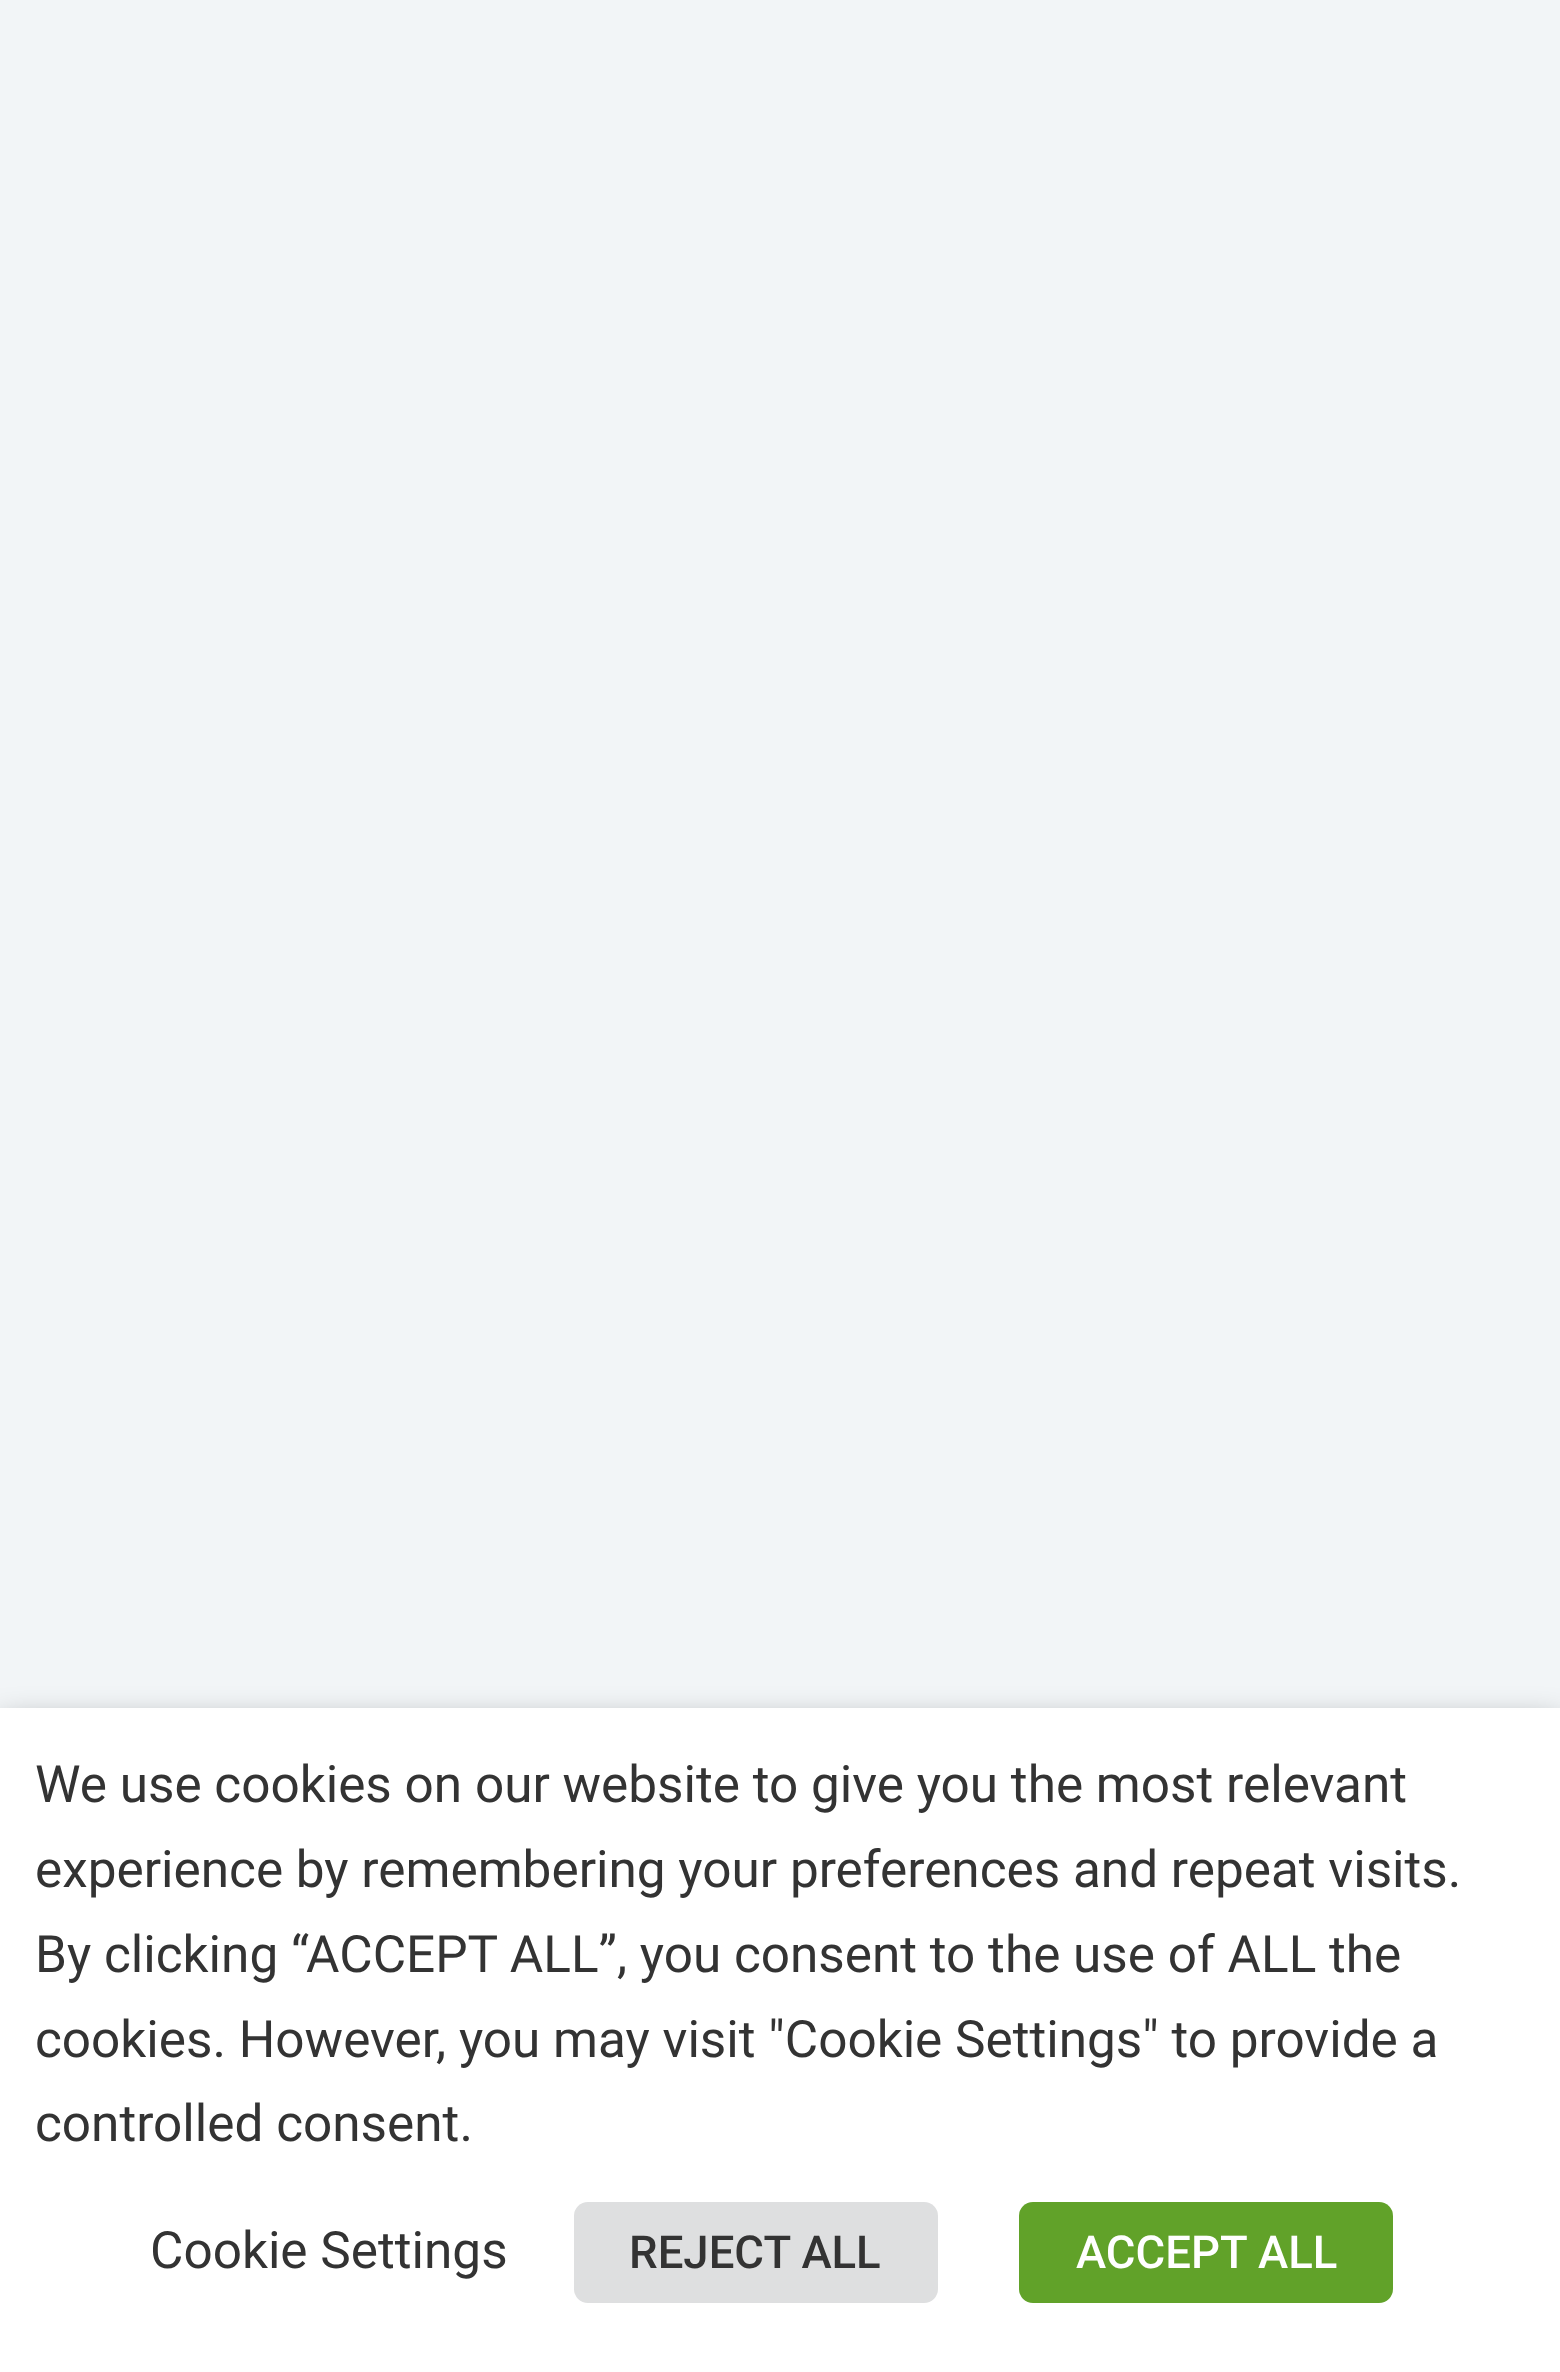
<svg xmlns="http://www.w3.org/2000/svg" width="1560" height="2372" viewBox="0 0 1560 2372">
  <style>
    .t1 { font: 51.3px Roboto; fill: #333; }
    .t2 { font: 500 45.5px Roboto; fill: #333; }
    .t3 { font: 500 45.5px Roboto; fill: #fff; }
  </style>
  <rect width="100%" height="100%" fill="#f2f5f7"/>
  <rect x="0" y="1726" width="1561" height="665" fill="#00000080" filter="blur(17.5px)"/>
  <rect x="0" y="1708" width="1560" height="664" fill="#fff"/>
  <text x="35" y="1802" class="t1">We use cookies on our website to give you the most relevant</text>
  <text x="35" y="1887" class="t1">experience by remembering your preferences and repeat visits.</text>
  <text x="35" y="1972" class="t1">By clicking “ACCEPT ALL”, you consent to the use of ALL the</text>
  <text x="35" y="2057" class="t1">cookies. However, you may visit "Cookie Settings" to provide a</text>
  <text x="35" y="2141" class="t1">controlled consent.</text>
  <text x="150" y="2268" class="t1">Cookie Settings</text>
  <rect x="574" y="2202" width="364" height="101" rx="14" fill="#dedfe0"/>
  <text x="629" y="2268" class="t2">REJECT ALL</text>
  <rect x="1019" y="2202" width="374" height="101" rx="14" fill="#61a229"/>
  <text x="1076" y="2268" class="t3">ACCEPT ALL</text>
</svg>
